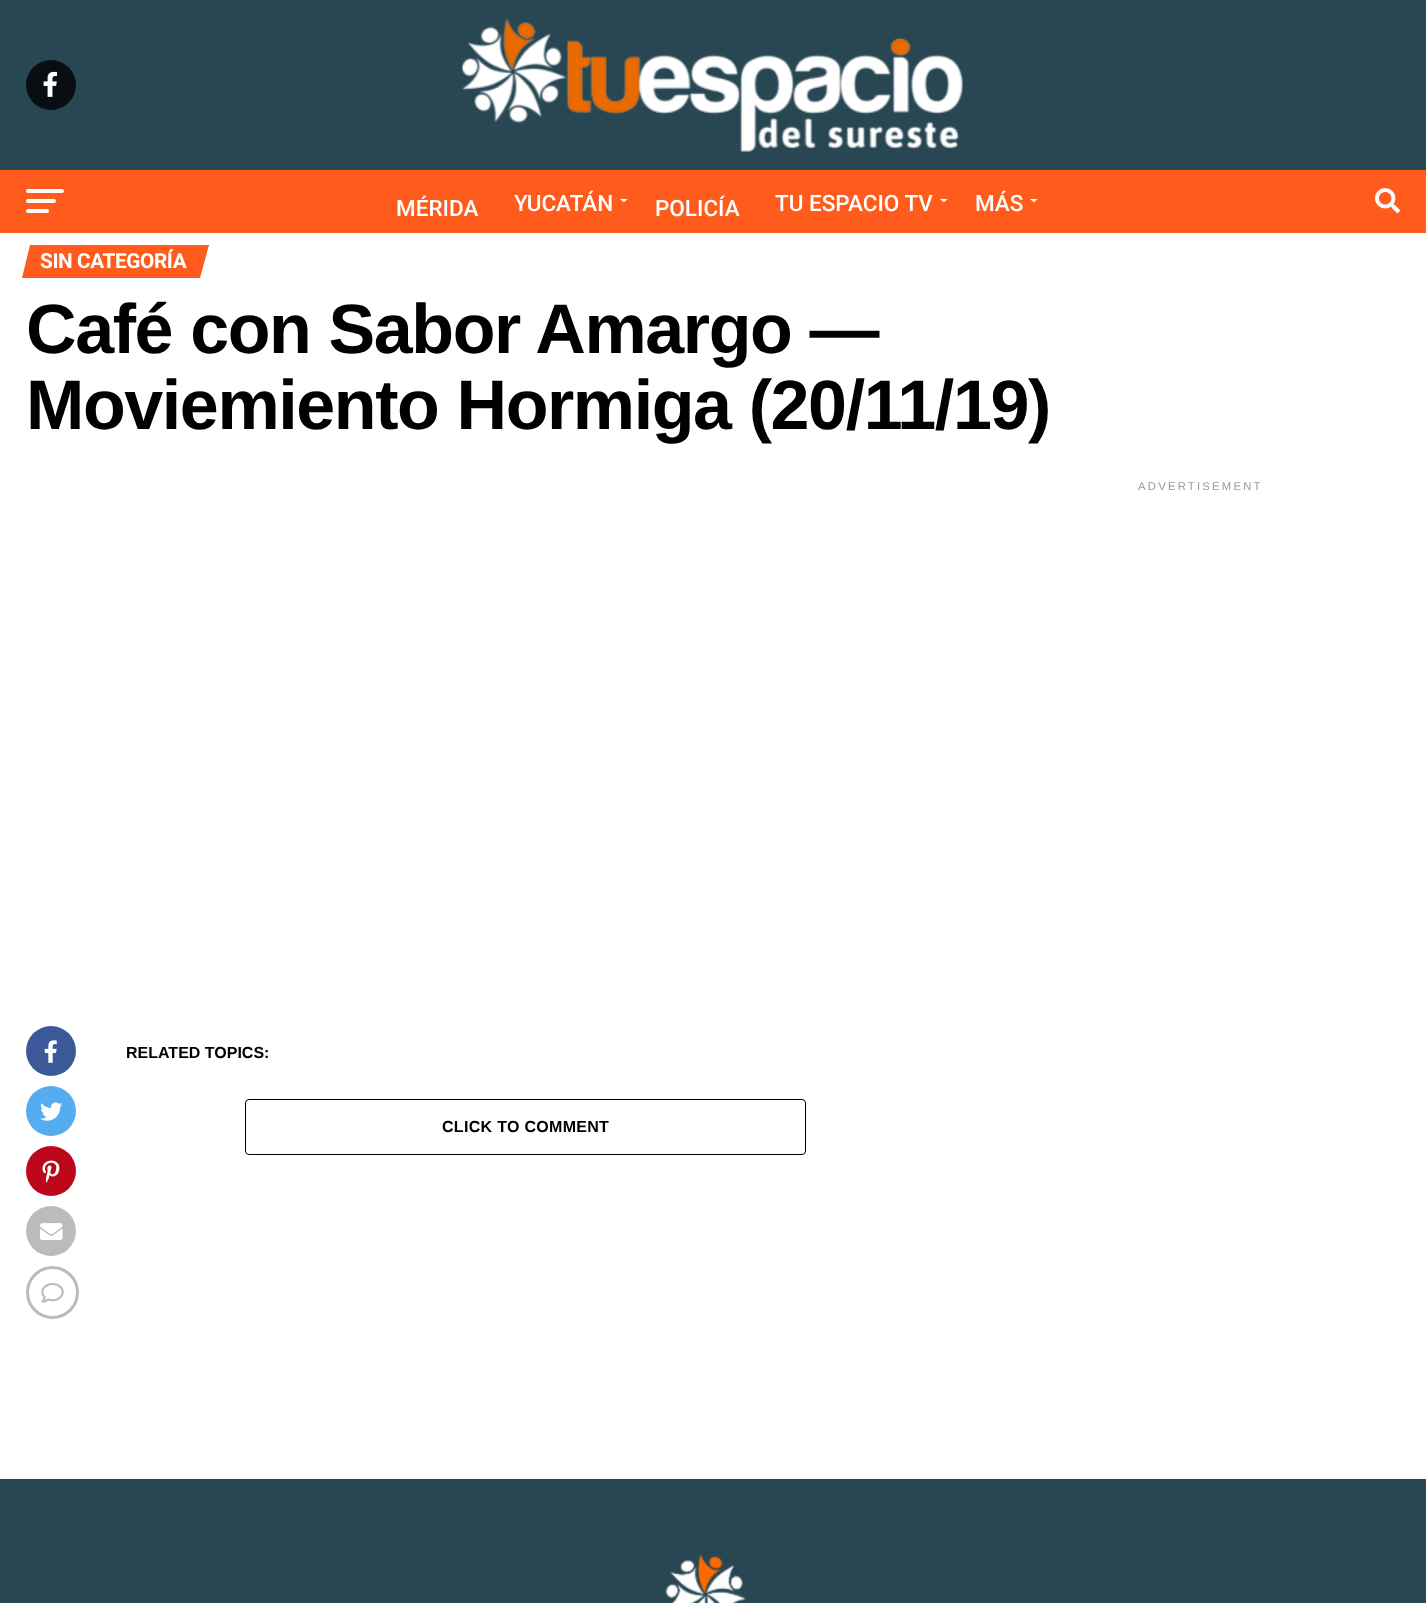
<svg xmlns="http://www.w3.org/2000/svg" width="1426" height="1603" viewBox="0 0 1426 1603">
  <style>
    .t1 { font: 500 22.5px Roboto; fill: #fff; }
    .t2 { font: bold 20.75px Roboto; letter-spacing: -0.4px; fill: #fff; }
    .t3 { font: bold 70px Liberation Sans; letter-spacing: -1.4px; fill: #000; }
    .t4 { font: 11.25px Liberation Sans; letter-spacing: 2.25px; fill: #999; }
    .t5 { font: bold 16px Liberation Sans; fill: #000; }
    .t6 { font: bold 16px Liberation Sans; letter-spacing: 0.3px; fill: #000; }
  </style>
  <rect width="100%" height="100%" fill="#fff"/>
  <rect x="0" y="0" width="1426" height="170" fill="#284753"/>
  <circle cx="51" cy="85" r="25" fill="#080e11"/>
  <image x="43" y="71" width="14" height="26" href="images/1.png"/>
  <image x="462" y="18" width="501" height="134" href="images/2.png"/>
  <rect x="0" y="170" width="1426" height="63" fill="#ff5b1c"/>
  <rect x="26" y="189" width="38" height="4" rx="2" fill="#fff"/>
  <rect x="26" y="199" width="30" height="4" rx="2" fill="#fff"/>
  <rect x="26" y="209" width="23" height="4" rx="2" fill="#fff"/>
  <text x="396" y="216" class="t1">MÉRIDA</text>
  <text x="514" y="211" class="t1">YUCATÁN</text>
  <path d="M620 199H627.5L624 202.5Z" fill="#fff"/>
  <text x="655" y="216" class="t1">POLICÍA</text>
  <text x="775" y="211" class="t1">TU ESPACIO TV</text>
  <path d="M940 199H947.5L944 202.5Z" fill="#fff"/>
  <text x="975" y="211" class="t1">MÁS</text>
  <path d="M1030 199H1037.5L1034 202.5Z" fill="#fff"/>
  <image x="1375" y="188" width="25" height="26" href="images/3.png"/>
  <path d="M30 245H209L200 278H22Z" fill="#ff5b1c"/>
  <text x="40" y="268" class="t2">SIN CATEGORÍA</text>
  <text x="26" y="353" class="t3">Café con Sabor Amargo —</text>
  <text x="26" y="429" class="t3">Moviemiento Hormiga (20/11/19)</text>
  <text x="1138" y="490" class="t4">ADVERTISEMENT</text>
  <circle cx="51" cy="1051" r="25" fill="#3b5998"/>
  <image x="44" y="1040" width="13" height="23" href="images/4.png"/>
  <circle cx="51" cy="1111" r="25" fill="#55acee"/>
  <image x="40" y="1102" width="23" height="19" href="images/5.png"/>
  <circle cx="51" cy="1171" r="25" fill="#bd081c"/>
  <image x="42" y="1160" width="18" height="23" href="images/6.png"/>
  <circle cx="51" cy="1231" r="25" fill="#bbb"/>
  <image x="40" y="1223" width="23" height="17" href="images/7.png"/>
  <circle cx="52.5" cy="1292.5" r="25" fill="none" stroke="#bbb" stroke-width="3"/>
  <image x="41" y="1283" width="23" height="20" href="images/8.png"/>
  <text x="126" y="1058" class="t5">RELATED TOPICS:</text>
  <rect x="245.5" y="1099.5" width="560" height="55" rx="3.5" fill="none" stroke="#000"/>
  <text x="442" y="1132" class="t6">CLICK TO COMMENT</text>
  <rect x="0" y="1479" width="1426" height="124" fill="#284753"/>
  <image x="665" y="1554" width="81" height="49" href="images/9.png"/>
</svg>
